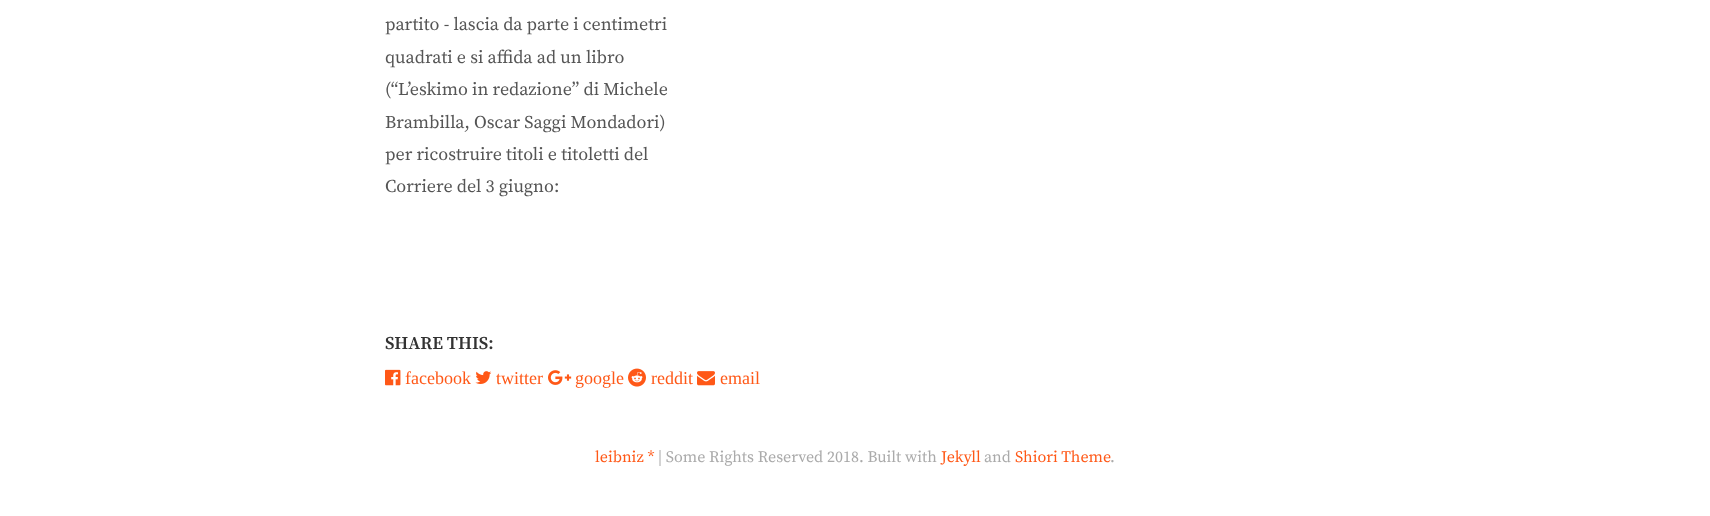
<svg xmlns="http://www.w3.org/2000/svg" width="1710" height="516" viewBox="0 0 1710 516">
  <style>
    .t1 { font: 18px Source Serif Pro; fill: #555; }
    .t2 { font: 600 18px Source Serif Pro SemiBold; fill: #333; }
    .t3 { font: 18px Liberation Serif; fill: #ff5817; }
    .t4 { font: 16px Source Serif Pro; fill: #ff5817; }
    .t5 { font: 16px Source Serif Pro; fill: #aaa; }
  </style>
  <rect width="100%" height="100%" fill="#fff"/>
  <text x="385" y="30" class="t1">partito - lascia da parte i centimetri</text>
  <text x="385" y="63" class="t1">quadrati e si affida ad un libro</text>
  <text x="385" y="95" class="t1">(“L’eskimo in redazione” di Michele</text>
  <text x="385" y="128" class="t1">Brambilla, Oscar Saggi Mondadori)</text>
  <text x="385" y="160" class="t1">per ricostruire titoli e titoletti del</text>
  <text x="385" y="192" class="t1">Corriere del 3 giugno:</text>
  <text x="385" y="349" class="t2">SHARE THIS:</text>
  <image x="385" y="369" width="16" height="17" href="images/1.png"/>
  <text x="405" y="384" class="t3">facebook</text>
  <image x="475" y="371" width="17" height="13" href="images/2.png"/>
  <text x="496" y="384" class="t3">twitter</text>
  <image x="548" y="370" width="24" height="15" href="images/3.png"/>
  <text x="575" y="384" class="t3">google</text>
  <image x="628" y="368" width="18" height="19" href="images/4.png"/>
  <text x="651" y="384" class="t3">reddit</text>
  <image x="697" y="371" width="18" height="15" href="images/5.png"/>
  <text x="720" y="384" class="t3">email</text>
  <text x="595" y="462" class="t4">leibniz *</text>
  <text x="658" y="462" class="t5">| Some Rights Reserved 2018. Built with</text>
  <text x="941" y="462" class="t4">Jekyll</text>
  <text x="984" y="462" class="t5">and</text>
  <text x="1015" y="462" class="t4">Shiori Theme</text>
  <text x="1110" y="462" class="t5">.</text>
</svg>
